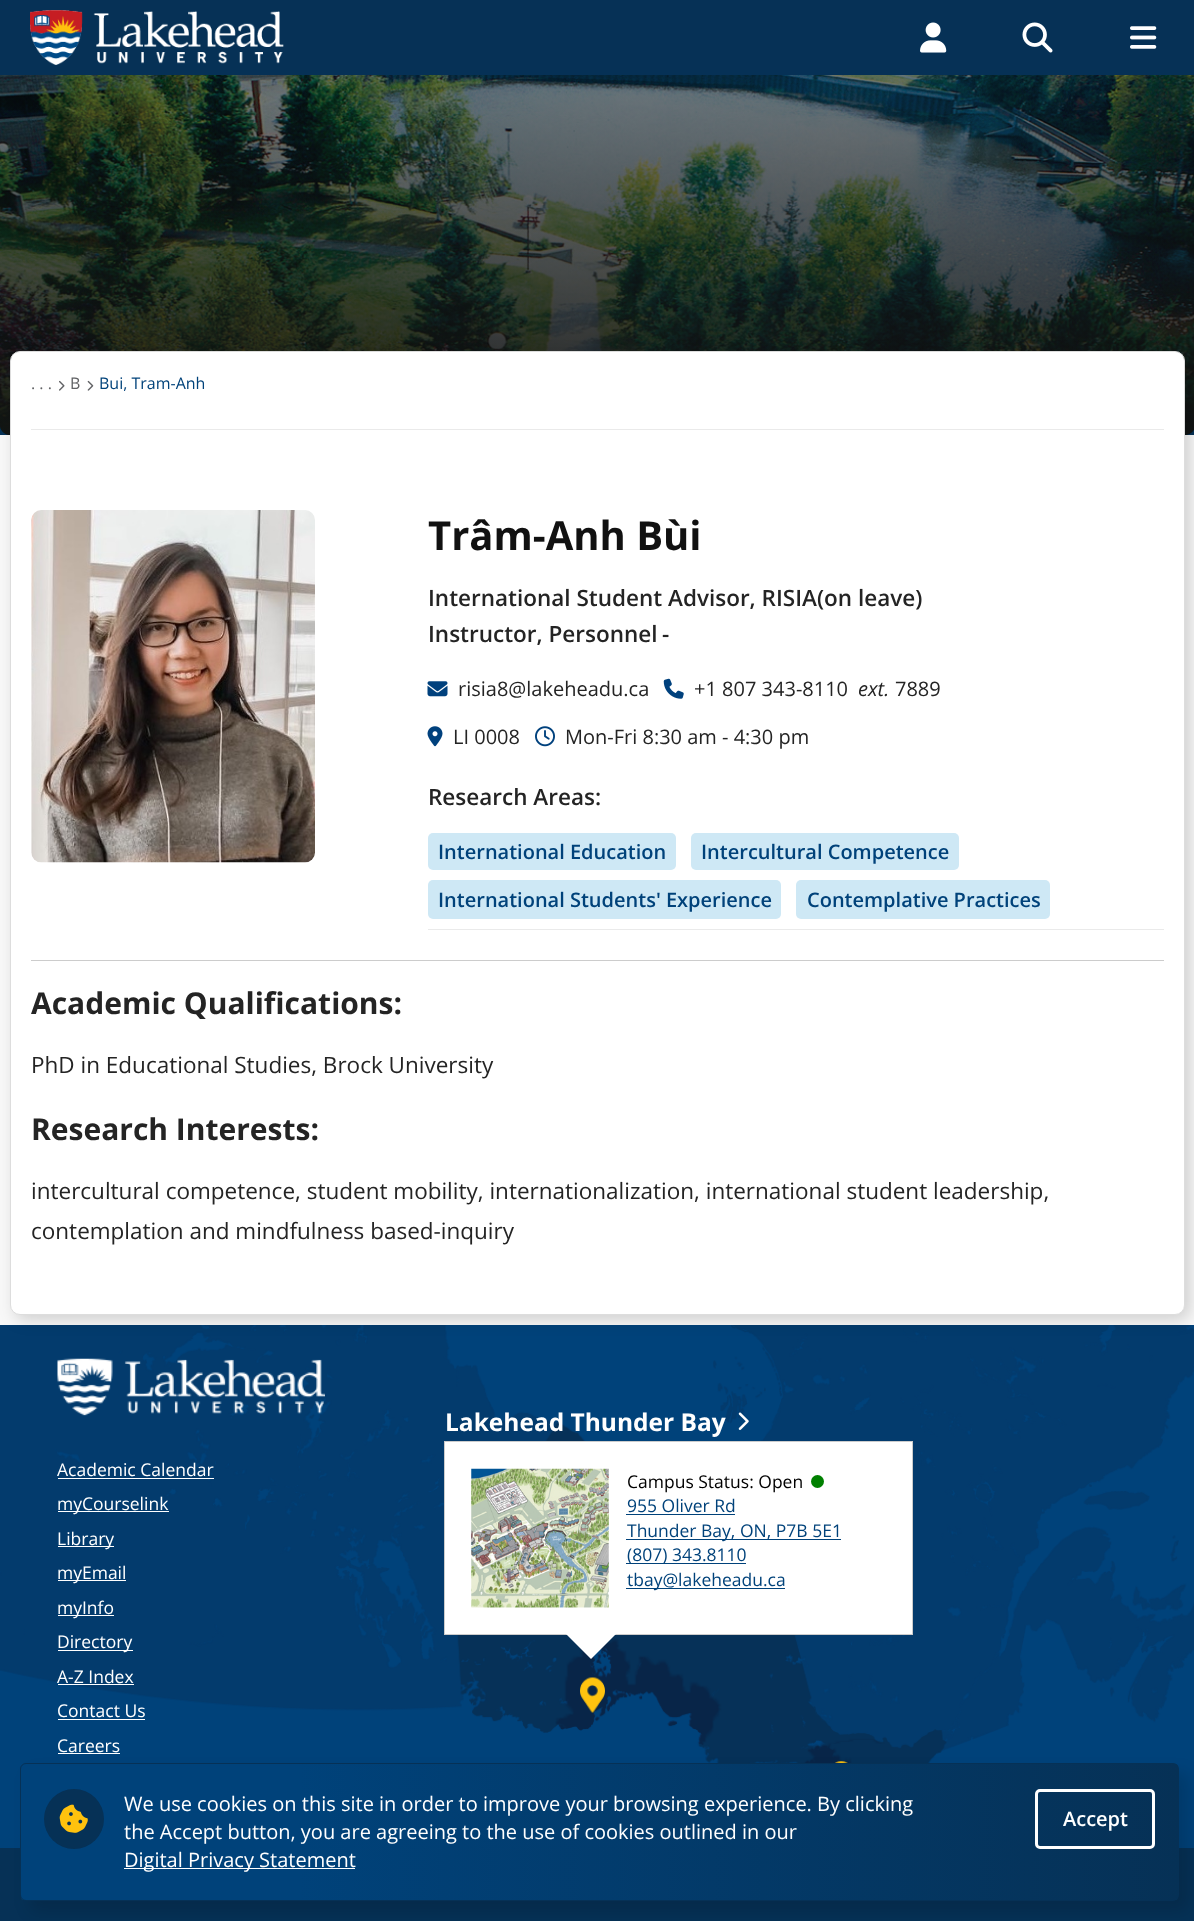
<svg xmlns="http://www.w3.org/2000/svg" width="1194" height="1921" viewBox="0 0 1194 1921">
  <style>
    .t1 { font: 16px Open Sans; fill: #616265; }
    .t2 { font: 16px Open Sans; fill: #00427a; }
    .t3 { font: bold 40px Open Sans; fill: #111; }
    .t4 { font: 600 22.5px Open Sans; fill: #242424; }
    .t5 { font: 20px Open Sans; fill: #242424; }
    .t6 { font: italic 20px Open Sans; fill: #242424; }
    .t7 { font: 600 20px Open Sans; fill: #00427a; }
    .t8 { font: bold 30px Open Sans; fill: #242424; }
    .t9 { font: 22.5px Open Sans; fill: #242424; }
    .t10 { font: 17.5px Open Sans; fill: #fff; }
    .t11 { font: bold 24.5px Open Sans; fill: #fff; }
    .t12 { font: 17.5px Open Sans; fill: #000; }
    .t13 { font: 17.5px Open Sans; fill: #00427a; }
    .t14 { font: 20px Open Sans; fill: #fff; }
    .t15 { font: 600 20px Open Sans; fill: #fff; }
  </style>
  <defs>
    <linearGradient id="g1" gradientUnits="userSpaceOnUse" x1="598" y1="75" x2="598" y2="435"><stop offset="0" stop-color="#141414" stop-opacity="0.2"/><stop offset="1" stop-color="#141414" stop-opacity="0.9"/></linearGradient>
    <clipPath id="clip1"><rect x="20" y="1763" width="1159" height="138" rx="6"/></clipPath>
    <linearGradient id="g2" gradientUnits="userSpaceOnUse" x1="21" y1="1833" x2="1178" y2="1831"><stop offset="0.24" stop-color="#00427a"/><stop offset="1" stop-color="#063156"/></linearGradient>
  </defs>
  <rect width="100%" height="100%" fill="#f8f8f8"/>
  <rect x="0" y="0" width="1194" height="435" fill="#063156"/>
  <image x="30" y="10" width="254" height="55" href="images/1.png"/>
  <image x="920" y="22" width="27" height="31" href="images/2.png"/>
  <image x="1022" y="22" width="31" height="31" href="images/3.png"/>
  <image x="1130" y="26" width="27" height="23" href="images/4.png"/>
  <image x="0" y="75" width="1194" height="360" href="images/5.png"/>
  <path d="M0 75H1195V425C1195 430.5 1190.5 435 1185 435H10C4.5 435 0 430.5 0 425Z" fill="url(#g1)"/>
  <rect x="0" y="1325" width="1194" height="523" fill="#00427a"/>
  <image x="0" y="1325" width="1194" height="438" href="images/13.png"/>
  <rect x="15" y="356" width="1175" height="964" rx="10" fill="#00000029" filter="blur(8px)"/>
  <rect x="10.5" y="351.5" width="1174" height="963" rx="9.5" fill="#fff" stroke="#ddd"/>
  <rect x="31" y="429" width="1133" height="1" fill="#eaeaea"/>
  <text x="31" y="389" class="t1">. . .</text>
  <image x="59" y="380" width="6" height="11" href="images/6.png"/>
  <text x="70" y="389" class="t1">B</text>
  <image x="87" y="380" width="7" height="11" href="images/7.png"/>
  <text x="99" y="389" class="t2">Bui, Tram-Anh</text>
  <rect x="31" y="960" width="1133" height="1" fill="#ccc"/>
  <image x="31" y="510" width="284" height="353" href="images/8.png"/>
  <rect x="428" y="929" width="736" height="1" fill="#eaeaea"/>
  <text x="428" y="550" class="t3">Trâm-Anh Bùi</text>
  <text x="428" y="606" class="t4">International Student Advisor, RISIA(on leave)</text>
  <text x="428" y="642" class="t4">Instructor, Personnel</text>
  <text x="662" y="642" class="t4">-</text>
  <image x="427" y="681" width="21" height="16" href="images/9.png"/>
  <text x="458" y="696" class="t5">risia8@lakeheadu.ca</text>
  <image x="663" y="678" width="21" height="21" href="images/10.png"/>
  <text x="694" y="696" class="t5">+1 807 343-8110</text>
  <text x="858" y="696" class="t6">ext.</text>
  <text x="895" y="696" class="t5">7889</text>
  <image x="427" y="726" width="16" height="21" href="images/11.png"/>
  <text x="453" y="744" class="t5">LI 0008</text>
  <image x="535" y="726" width="20" height="21" href="images/12.png"/>
  <text x="565" y="744" class="t5">Mon-Fri 8:30 am - 4:30 pm</text>
  <text x="428" y="805" class="t4">Research Areas:</text>
  <rect x="428" y="833" width="248" height="37" rx="5" fill="#cee8f5"/>
  <text x="438" y="859" class="t7">International Education</text>
  <rect x="691" y="833" width="268" height="37" rx="5" fill="#cee8f5"/>
  <text x="701" y="859" class="t7">Intercultural Competence</text>
  <rect x="428" y="880" width="353" height="39" rx="5" fill="#cee8f5"/>
  <text x="438" y="907" class="t7">International Students' Experience</text>
  <rect x="796" y="880" width="254" height="39" rx="5" fill="#cee8f5"/>
  <text x="807" y="907" class="t7">Contemplative Practices</text>
  <text x="31" y="1014" class="t8">Academic Qualifications:</text>
  <text x="31" y="1073" class="t9">PhD in Educational Studies, Brock University</text>
  <text x="31" y="1140" class="t8">Research Interests:</text>
  <text x="31" y="1199" class="t9">intercultural competence, student mobility, internationalization, international student leadership,</text>
  <text x="31" y="1239" class="t9">contemplation and mindfulness based-inquiry</text>
  <image x="57" y="1358" width="268" height="58" href="images/14.png"/>
  <text x="57" y="1476" class="t10">Academic Calendar</text>
  <rect x="58" y="1478" width="156" height="1" fill="#fff"/>
  <rect x="58" y="1511" width="111" height="1" fill="#fff"/>
  <text x="57" y="1510" class="t10">myCourselink</text>
  <rect x="58" y="1546" width="56" height="1" fill="#fff"/>
  <text x="57" y="1545" class="t10">Library</text>
  <rect x="58" y="1580" width="68" height="1" fill="#fff"/>
  <text x="57" y="1579" class="t10">myEmail</text>
  <rect x="58" y="1615" width="56" height="1" fill="#fff"/>
  <text x="57" y="1614" class="t10">myInfo</text>
  <rect x="58" y="1650" width="75" height="1" fill="#fff"/>
  <text x="57" y="1648" class="t10">Directory</text>
  <text x="57" y="1683" class="t10">A-Z Index</text>
  <rect x="58" y="1684" width="76" height="1" fill="#fff"/>
  <text x="57" y="1717" class="t10">Contact Us</text>
  <rect x="58" y="1719" width="87" height="1" fill="#fff"/>
  <text x="57" y="1752" class="t10">Careers</text>
  <rect x="58" y="1753" width="62" height="1" fill="#fff"/>
  <rect x="444.5" y="1441.5" width="468" height="193" fill="#fff" stroke="#ccc"/>
  <text x="445" y="1431" class="t11">Lakehead Thunder Bay</text>
  <image x="738" y="1412" width="11" height="18" href="images/15.png"/>
  <text x="627" y="1488" class="t12">Campus Status: Open</text>
  <circle cx="817.5" cy="1481.5" r="6.5" fill="#008000"/>
  <text x="627" y="1512" class="t13">955 Oliver Rd</text>
  <rect x="626" y="1514" width="109" height="1" fill="#00427a"/>
  <rect x="626" y="1539" width="215" height="1" fill="#00427a"/>
  <text x="627" y="1537" class="t13">Thunder Bay, ON, P7B 5E1</text>
  <rect x="626" y="1563" width="120" height="1" fill="#00427a"/>
  <text x="627" y="1561" class="t13">(807) 343.8110</text>
  <rect x="626" y="1588" width="159" height="1" fill="#00427a"/>
  <text x="627" y="1586" class="t13">tbay@lakeheadu.ca</text>
  <image x="471" y="1468" width="138" height="140" href="images/16.png"/>
  <path d="M566 1634H616L591 1659Z" fill="#fff"/>
  <image x="580" y="1677" width="25" height="36" href="images/17.png"/>
  <image x="835" y="1761" width="13" height="2" href="images/18.png"/>
  <rect x="0" y="1848" width="1194" height="73" fill="#063156"/>
  <rect x="30" y="1773" width="1159" height="138" rx="6" fill="#00000021" filter="blur(8px)"/>
  <g clip-path="url(#clip1)">
    <rect x="21" y="1764" width="1157" height="136" fill="url(#g2)"/>
  </g>
  <rect x="20.5" y="1763.5" width="1158" height="137" rx="5.5" fill="none" stroke="#063156"/>
  <circle cx="74" cy="1819" r="30" fill="#063156"/>
  <image x="59" y="1804" width="29" height="29" href="images/19.png"/>
  <text x="124" y="1811" class="t14">We use cookies on this site in order to improve your browsing experience. By clicking</text>
  <text x="124" y="1839" class="t14">the Accept button, you are agreeing to the use of cookies outlined in our</text>
  <rect x="124" y="1868" width="231" height="1" fill="#fff"/>
  <text x="124" y="1867" class="t14">Digital Privacy Statement</text>
  <rect x="1036.5" y="1790.5" width="117" height="57" rx="3.5" fill="none" stroke="#fff" stroke-width="3"/>
  <text x="1063" y="1826" class="t15">Accept</text>
</svg>
